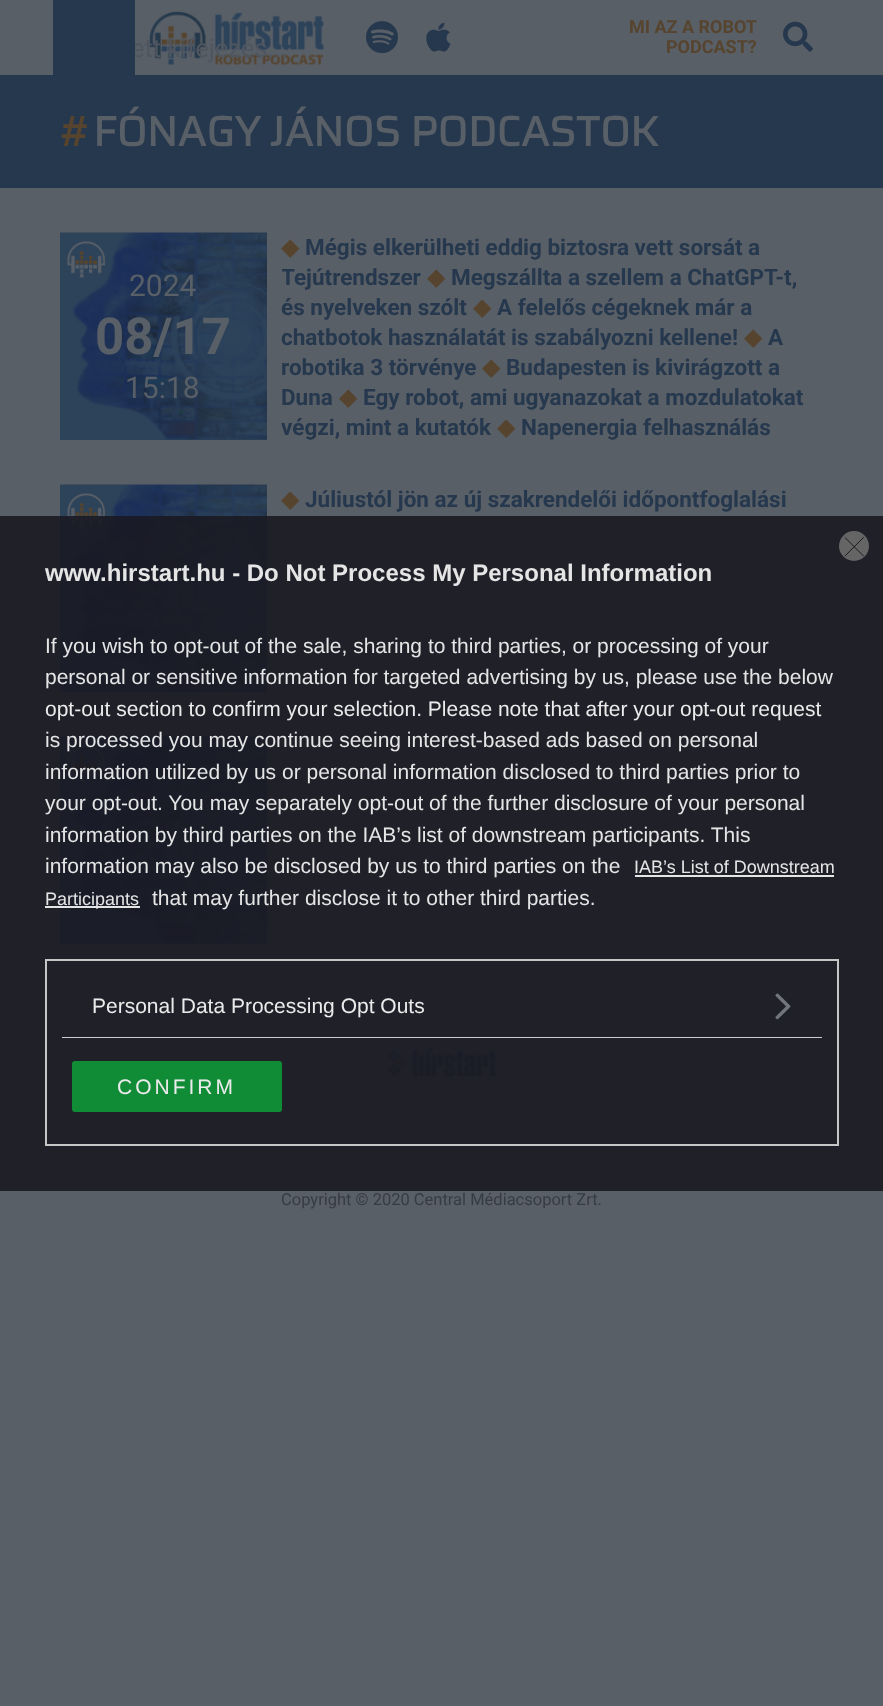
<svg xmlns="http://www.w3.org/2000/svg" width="883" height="1706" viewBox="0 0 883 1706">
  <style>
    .t1 { font: 25.5px Roboto; fill: #4f565f; }
    .t2 { font: bold 18px Roboto; fill: #57442e; }
    .t3 { font: bold 42px Saira; fill: #57442e; }
    .t4 { font: bold 42px Saira; fill: #595f67; }
    .t5 { font: 30px Roboto; fill: #595f67; }
    .t6 { font: bold 51px Roboto; fill: #595f67; }
    .t7 { font: 24px DejaVu Sans; fill: #57442e; }
    .t8 { font: bold 22.5px Roboto; fill: #26384d; }
    .t9 { font: bold 24px Liberation Sans; fill: #e5e5e6; }
    .t10 { font: 21px Liberation Sans; fill: #e5e5e6; }
    .t11 { font: 21px Liberation Sans; fill: #ebebec; }
    .t12 { font: 18px Liberation Sans; fill: #e5e5e6; }
    .t13 { font: 21px Liberation Sans; letter-spacing: 3px; fill: #ebebec; }
    .t14 { font: 16.5px Roboto; fill: #363c44; }
  </style>
  <defs>
    <clipPath id="clip1"><rect x="282" y="233" width="543" height="207"/></clipPath>
    <clipPath id="clip2"><rect x="845" y="537" width="19" height="20"/></clipPath>
  </defs>
  <rect width="100%" height="100%" fill="#595f67"/>
  <image x="149" y="11" width="175" height="54" href="images/1.png"/>
  <text x="131" y="57" class="t1">ett kifejezés...</text>
  <rect x="53" y="0" width="82" height="75" fill="#26384d"/>
  <image x="366" y="21" width="32" height="33" href="images/2.png"/>
  <image x="426" y="22" width="25" height="30" href="images/3.png"/>
  <text x="629" y="33" class="t2">MI AZ A ROBOT</text>
  <text x="666" y="53" class="t2">PODCAST?</text>
  <image x="783" y="21" width="30" height="31" href="images/4.png"/>
  <rect x="0" y="75" width="883" height="113" fill="#26384d"/>
  <text x="59" y="146" class="t3">#</text>
  <text x="93" y="146" class="t4">FÓNAGY JÁNOS PODCASTOK</text>
  <rect x="60" y="439" width="207" height="1" fill="#2c435a"/>
  <image x="60" y="232" width="207" height="208" href="images/5.png"/>
  <image x="67" y="241" width="38" height="37" href="images/6.png"/>
  <text x="129" y="296" class="t5">2024</text>
  <text x="95" y="354" class="t6">08/17</text>
  <text x="125" y="398" class="t5">15:18</text>
  <text x="281" y="255" class="t7">◆</text>
  <text x="305" y="255" class="t8">Mégis elkerülheti eddig biztosra vett sorsát a</text>
  <g clip-path="url(#clip1)">
    <text x="281" y="285" class="t8">Tejútrendszer</text>
  </g>
  <text x="427" y="285" class="t7">◆</text>
  <text x="451" y="285" class="t8">Megszállta a szellem a ChatGPT-t,</text>
  <text x="281" y="315" class="t8">és nyelveken szólt</text>
  <text x="473" y="315" class="t7">◆</text>
  <text x="497" y="315" class="t8">A felelős cégeknek már a</text>
  <text x="281" y="345" class="t8">chatbotok használatát is szabályozni kellene!</text>
  <text x="744" y="345" class="t7">◆</text>
  <text x="768" y="345" class="t8">A</text>
  <text x="281" y="375" class="t8">robotika 3 törvénye</text>
  <text x="482" y="375" class="t7">◆</text>
  <text x="506" y="375" class="t8">Budapesten is kivirágzott a</text>
  <text x="281" y="405" class="t8">Duna</text>
  <text x="339" y="405" class="t7">◆</text>
  <text x="363" y="405" class="t8">Egy robot, ami ugyanazokat a mozdulatokat</text>
  <text x="281" y="435" class="t8">végzi, mint a kutatók</text>
  <text x="497" y="435" class="t7">◆</text>
  <text x="521" y="435" class="t8">Napenergia felhasználás</text>
  <rect x="60" y="691" width="207" height="1" fill="#2c435a"/>
  <image x="60" y="484" width="207" height="208" href="images/5.png"/>
  <image x="67" y="493" width="38" height="37" href="images/6.png"/>
  <text x="281" y="507" class="t7">◆</text>
  <text x="305" y="507" class="t8">Júliustól jön az új szakrendelői időpontfoglalási</text>
  <rect x="60" y="943" width="207" height="1" fill="#2c435a"/>
  <image x="60" y="736" width="207" height="208" href="images/5.png"/>
  <image x="67" y="745" width="38" height="37" href="images/6.png"/>
  <image x="387" y="1048" width="110" height="30" href="images/8.png"/>
  <rect x="0" y="516" width="883" height="675" fill="#191922e6"/>
  <circle cx="854" cy="546" r="15" fill="#656566"/>
  <g clip-path="url(#clip2)">
    <path d="M845 537.5L863.5 556M863.5 537.5L845 556" fill="none" stroke="#09090a" stroke-width="0.8" stroke-linecap="round" stroke-linejoin="round"/>
  </g>
  <text x="45" y="581" class="t9">www.hirstart.hu - Do Not Process My Personal Information</text>
  <text x="45" y="653" class="t10">If you wish to opt-out of the sale, sharing to third parties, or processing of your</text>
  <text x="45" y="684" class="t10">personal or sensitive information for targeted advertising by us, please use the below</text>
  <text x="45" y="716" class="t11">opt-out section to confirm your selection. Please note that after your opt-out request</text>
  <text x="45" y="747" class="t10">is processed you may continue seeing interest-based ads based on personal</text>
  <text x="45" y="779" class="t10">information utilized by us or personal information disclosed to third parties prior to</text>
  <text x="45" y="810" class="t10">your opt-out. You may separately opt-out of the further disclosure of your personal</text>
  <text x="45" y="842" class="t10">information by third parties on the IAB’s list of downstream participants. This</text>
  <text x="45" y="873" class="t10">information may also be disclosed by us to third parties on the</text>
  <text x="634" y="873" class="t12">IAB’s List of Downstream</text>
  <rect x="635" y="875" width="199" height="2" fill="#fbfbfbe6"/>
  <rect x="45" y="906" width="95" height="2" fill="#fbfbfbe6"/>
  <text x="45" y="905" class="t12">Participants</text>
  <text x="152" y="905" class="t10">that may further disclose it to other third parties.</text>
  <rect x="46" y="960" width="792" height="185" fill="none" stroke="#c6c6c6" stroke-width="2"/>
  <rect x="62" y="1037" width="760" height="1" fill="#cbcccd"/>
  <text x="92" y="1013" class="t11">Personal Data Processing Opt Outs</text>
  <image x="775" y="993" width="16" height="27" href="images/7.png"/>
  <rect x="72" y="1061" width="210" height="51" rx="3" fill="#0e9839e6"/>
  <text x="117" y="1094" class="t13">CONFIRM</text>
  <text x="281" y="1205" class="t14">Copyright © 2020 Central Médiacsoport Zrt.</text>
</svg>
